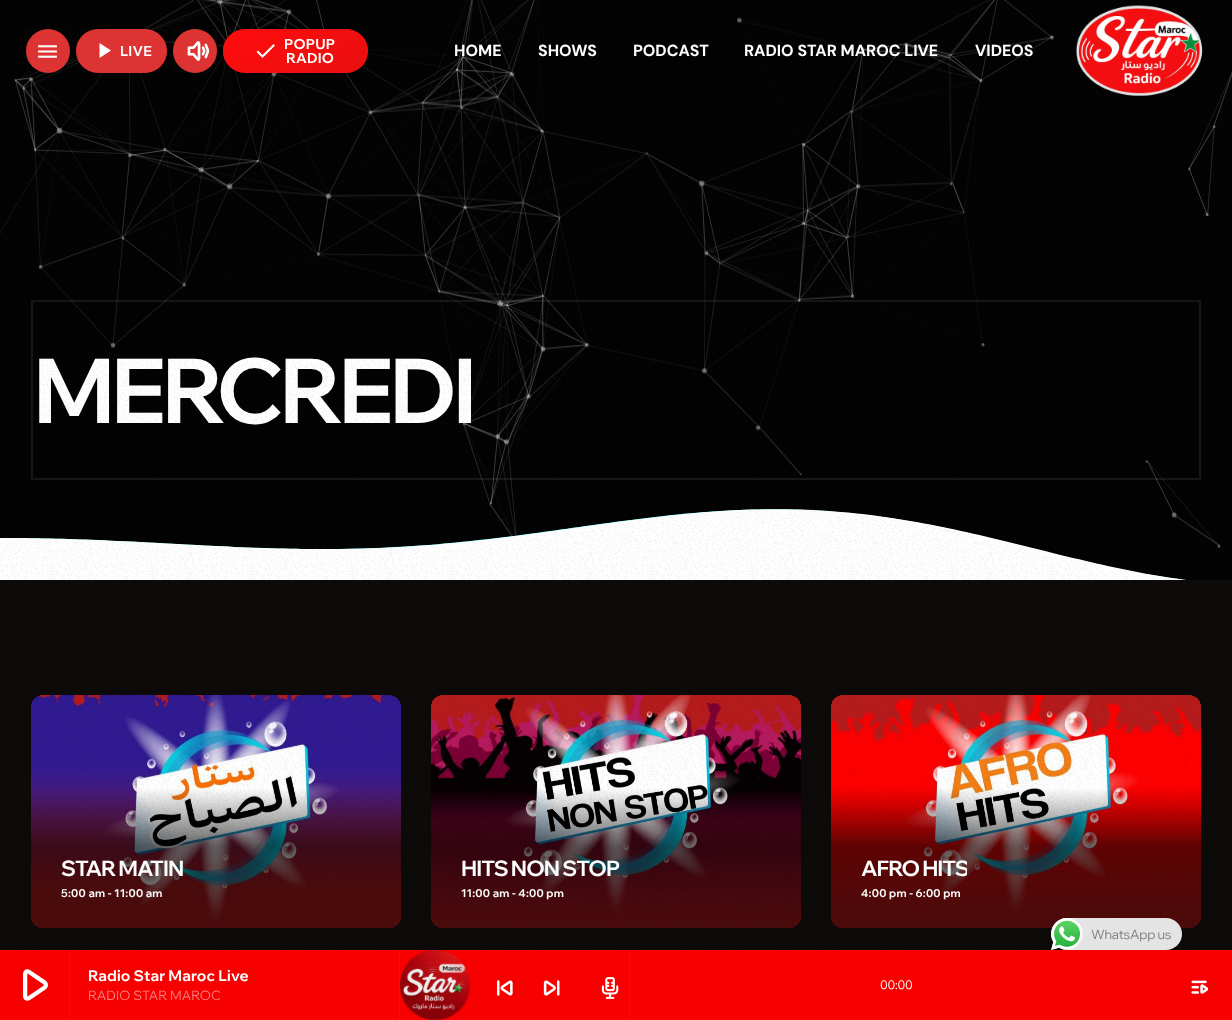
<svg xmlns="http://www.w3.org/2000/svg" width="1232" height="1020" viewBox="0 0 1232 1020">
  <style>
    .t1 { font: bold 89.75px Wix Madefor Display; letter-spacing: -4.5px; fill: #fff; }
    .t2 { font: bold 21.5px Wix Madefor Display; letter-spacing: -1px; fill: #fff; }
    .t3 { font: bold 11px Wix Madefor Display; letter-spacing: 0.25px; fill: #fff; }
    .t4 { font: bold 14px Wix Madefor Display; letter-spacing: 0.25px; fill: #fff; }
    .t5 { font: bold 16px DM Sans; fill: #fff; }
    .t6 { font: bold 15px Wix Madefor Display; letter-spacing: 0.15px; fill: #fff; }
    .t7 { font: 13px Wix Madefor Display; letter-spacing: 0.1px; fill: #fb8080; }
    .t8 { font: 12px Wix Madefor Display; letter-spacing: -0.25px; fill: #fff; }
    .t9 { font: 13px Wix Madefor Display; letter-spacing: -0.25px; fill: #7f7d7d; }
  </style>
  <defs>
    <linearGradient id="g1" gradientUnits="userSpaceOnUse" x1="216" y1="695" x2="216" y2="928"><stop offset="0" stop-color="#000" stop-opacity="0"/><stop offset="0.4" stop-color="#000" stop-opacity="0"/><stop offset="0.65" stop-color="#000" stop-opacity="0.59"/><stop offset="1" stop-color="#000" stop-opacity="0.59"/></linearGradient>
    <linearGradient id="g2" gradientUnits="userSpaceOnUse" x1="616" y1="695" x2="616" y2="928"><stop offset="0" stop-color="#000" stop-opacity="0"/><stop offset="0.4" stop-color="#000" stop-opacity="0"/><stop offset="0.65" stop-color="#000" stop-opacity="0.59"/><stop offset="1" stop-color="#000" stop-opacity="0.59"/></linearGradient>
    <linearGradient id="g3" gradientUnits="userSpaceOnUse" x1="1016" y1="695" x2="1016" y2="928"><stop offset="0" stop-color="#000" stop-opacity="0"/><stop offset="0.4" stop-color="#000" stop-opacity="0"/><stop offset="0.65" stop-color="#000" stop-opacity="0.59"/><stop offset="1" stop-color="#000" stop-opacity="0.59"/></linearGradient>
    <clipPath id="clip1"><rect x="861" y="855" width="106" height="25"/></clipPath>
    <clipPath id="clip2"><rect x="223" y="29" width="145" height="44" rx="22"/></clipPath>
    <linearGradient id="g4" gradientUnits="userSpaceOnUse" x1="264" y1="-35" x2="327" y2="57"><stop offset="0" stop-color="#e90f0f" stop-opacity="0"/><stop offset="1" stop-color="#e90f0f"/></linearGradient>
    <linearGradient id="g5" gradientUnits="userSpaceOnUse" x1="123" y1="4.6" x2="186" y2="97"><stop offset="0" stop-color="#e90f0f" stop-opacity="0"/><stop offset="1" stop-color="#e90f0f"/></linearGradient>
    <linearGradient id="g6" gradientUnits="userSpaceOnUse" x1="264" y1="4.6" x2="327" y2="97"><stop offset="0" stop-color="#e90f0f" stop-opacity="0"/><stop offset="1" stop-color="#e90f0f"/></linearGradient>
    <linearGradient id="g7" gradientUnits="userSpaceOnUse" x1="405" y1="4.6" x2="468" y2="97"><stop offset="0" stop-color="#e90f0f" stop-opacity="0"/><stop offset="1" stop-color="#e90f0f"/></linearGradient>
    <linearGradient id="g8" gradientUnits="userSpaceOnUse" x1="264" y1="45" x2="327" y2="137"><stop offset="0" stop-color="#e90f0f" stop-opacity="0"/><stop offset="1" stop-color="#e90f0f"/></linearGradient>
  </defs>
  <rect width="100%" height="100%" fill="#040303"/>
  <rect x="32" y="301" width="1168" height="178" fill="none" stroke="#181717" stroke-width="2"/>
  <text x="33" y="423" class="t1">MERCREDI</text>
  <image x="26" y="509" width="1158" height="71" href="images/7.png"/>
  <image x="0" y="509" width="1186" height="71" href="images/6.png"/>
  <image x="0" y="0" width="1232" height="548" href="images/5.png"/>
  <rect x="0" y="580" width="1232" height="370" fill="#0c0b0a"/>
  <image x="31" y="695" width="370" height="233" href="images/8.png"/>
  <image x="31" y="695" width="370" height="233" href="images/9.png"/>
  <image x="31" y="695" width="370" height="233" href="images/10.png"/>
  <rect x="31" y="695" width="370" height="233" rx="12" fill="url(#g1)"/>
  <text x="61" y="876" class="t2">STAR MATIN</text>
  <text x="61" y="897" class="t3">5:00 am - 11:00 am</text>
  <image x="431" y="695" width="370" height="233" href="images/11.png"/>
  <image x="431" y="695" width="370" height="233" href="images/12.png"/>
  <image x="431" y="695" width="370" height="233" href="images/13.png"/>
  <rect x="431" y="695" width="370" height="233" rx="12" fill="url(#g2)"/>
  <text x="461" y="876" class="t2">HITS NON STOP</text>
  <text x="461" y="897" class="t3">11:00 am - 4:00 pm</text>
  <image x="831" y="695" width="370" height="233" href="images/14.png"/>
  <image x="831" y="695" width="370" height="233" href="images/15.png"/>
  <image x="831" y="695" width="370" height="233" href="images/16.png"/>
  <rect x="831" y="695" width="370" height="233" rx="12" fill="url(#g3)"/>
  <g clip-path="url(#clip1)">
    <text x="861" y="876" class="t2">AFRO HITS</text>
  </g>
  <text x="861" y="897" class="t3">4:00 pm - 6:00 pm</text>
  <image x="0" y="0" width="1207" height="950" href="images/1.png"/>
  <circle cx="48" cy="51" r="22" fill="#d33"/>
  <rect x="27" y="30" width="42" height="42" fill="none" stroke="#8c8c8c08" stroke-width="2"/>
  <image x="38" y="45" width="19" height="13" href="images/2.png"/>
  <rect x="76" y="29" width="91" height="44" rx="22" fill="#d33"/>
  <rect x="77" y="30" width="89" height="42" fill="none" stroke="#8c8c8c08" stroke-width="2"/>
  <path d="M99.5 43L111 50.5L99.5 58Z" fill="#fff"/>
  <text x="120" y="56" class="t4">LIVE</text>
  <circle cx="195" cy="51" r="22" fill="#d33"/>
  <rect x="174" y="30" width="42" height="42" fill="none" stroke="#8c8c8c08" stroke-width="2"/>
  <image x="187" y="41" width="22" height="20" href="images/3.png"/>
  <rect x="223" y="29" width="145" height="44" rx="22" fill="#ff0c0c"/>
  <g clip-path="url(#clip2)">
    <rect x="236" y="29" width="119" height="2" fill="url(#g4)"/>
    <rect x="223" y="42" width="2" height="18" fill="url(#g5)"/>
    <rect x="225" y="31" width="141" height="40" fill="url(#g6)"/>
    <rect x="366" y="42" width="2" height="18" fill="url(#g7)"/>
    <rect x="237" y="71" width="118" height="2" fill="url(#g8)"/>
  </g>
  <rect x="224" y="30" width="143" height="42" fill="none" stroke="#8c8c8c08" stroke-width="2"/>
  <path d="M262.5 55L273.5 44L275 45.5L262.5 58L256.5 52L258 50.5Z" fill="#fff"/>
  <text x="284" y="49" class="t4">POPUP</text>
  <text x="286" y="63" class="t4">RADIO</text>
  <text x="454" y="56" class="t5">HOME</text>
  <text x="538" y="56" class="t5">SHOWS</text>
  <text x="633" y="56" class="t5">PODCAST</text>
  <text x="744" y="56" class="t5">RADIO STAR MAROC LIVE</text>
  <text x="975" y="56" class="t5">VIDEOS</text>
  <image x="1076" y="5" width="127" height="91" href="images/4.png"/>
  <rect x="0" y="950" width="1232" height="70" fill="#f60000"/>
  <rect x="399" y="950" width="1" height="70" fill="#ca1e1e"/>
  <rect x="69" y="950" width="1" height="70" fill="#ca1e1e"/>
  <image x="23" y="969" width="25" height="32" href="images/17.png"/>
  <text x="88" y="981" class="t6">Radio Star Maroc Live</text>
  <text x="88" y="1000" class="t7">RADIO STAR MAROC</text>
  <image x="400" y="950" width="70" height="70" href="images/18.png"/>
  <rect x="629" y="950" width="1" height="70" fill="#ca1e1e"/>
  <image x="497" y="980" width="16" height="16" href="images/19.png"/>
  <image x="543" y="980" width="17" height="16" href="images/20.png"/>
  <image x="601" y="977" width="18" height="22" href="images/21.png"/>
  <text x="880" y="989" class="t8">00:00</text>
  <image x="1191" y="980" width="18" height="14" href="images/22.png"/>
  <rect x="1051" y="918" width="131" height="32" rx="16" fill="#e4e4e4"/>
  <image x="1051" y="918" width="32" height="32" href="images/23.png"/>
  <text x="1091" y="939" class="t9">WhatsApp us</text>
</svg>
